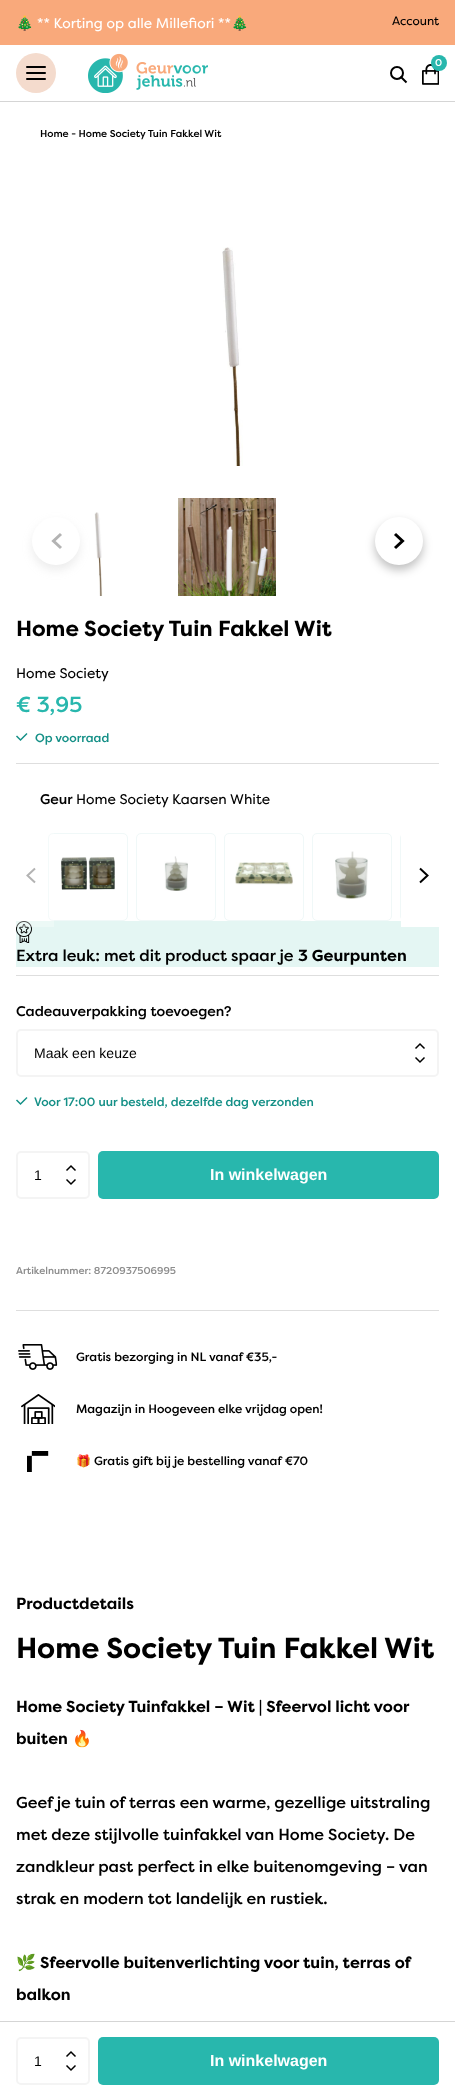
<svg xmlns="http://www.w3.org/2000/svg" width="455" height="2099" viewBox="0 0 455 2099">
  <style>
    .t1 { font: 14px Noto Color Emoji; fill: #fff; }
    .t2 { font: 14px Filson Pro; fill: #fff; }
    .t3 { font: 12px Filson Pro; fill: #000; }
    .t4 { font: 500 10px Filson Pro; fill: #fff; }
    .t5 { font: 500 10px Filson Pro; fill: #000; }
    .t6 { font: bold 21.75px Filson Pro; fill: #000; }
    .t7 { font: 14px Filson Pro; fill: #000; }
    .t8 { font: 500 21.75px Filson Pro; fill: #28b7ad; }
    .t9 { font: 500 12px Filson Pro; fill: #159087; }
    .t10 { font: 500 14px Filson Pro; fill: #000; }
    .t11 { font: 500 16px Filson Pro; fill: #000; }
    .t12 { font: bold 16px Filson Pro; fill: #000; }
    .t13 { font: 14px Liberation Sans; fill: #000; }
    .t14 { font: bold 16px Liberation Sans; fill: #fff; }
    .t15 { font: 500 10px Filson Pro; fill: #8e8e8e; }
    .t16 { font: 500 12px Filson Pro; fill: #000; }
    .t17 { font: 12px Noto Color Emoji; fill: #000; }
    .t18 { font: bold 28.8px Filson Pro; fill: #000; }
    .t19 { font: bold 16px Noto Color Emoji; fill: #000; }
    .t20 { font: 16px Noto Color Emoji; fill: #000; }
  </style>
  <defs>
    <clipPath id="clip1"><rect x="48" y="833" width="359" height="88"/></clipPath>
  </defs>
  <rect width="100%" height="100%" fill="#fff"/>
  <rect x="0" y="101" width="455" height="1" fill="#d5d5d5"/>
  <rect x="0" y="0" width="455" height="45" fill="#f9a97b"/>
  <text x="16" y="28" class="t1">🎄</text>
  <text x="37" y="28" class="t2">** Korting op alle Millefiori **</text>
  <text x="231" y="28" class="t1">🎄</text>
  <text x="392" y="25" class="t3">Account</text>
  <circle cx="36" cy="73" r="20" fill="#f4dbcd"/>
  <rect x="26" y="66" width="20" height="2" rx="1" fill="#000"/>
  <rect x="26" y="72" width="20" height="2" rx="1" fill="#000"/>
  <rect x="26" y="78" width="20" height="2" rx="1" fill="#000"/>
  <image x="88" y="53" width="120" height="40" href="images/1.png"/>
  <image x="422" y="64" width="17" height="21" href="images/2.png"/>
  <circle cx="439" cy="63" r="8" fill="#28b7ad"/>
  <text x="435" y="66" class="t4">0</text>
  <circle cx="397" cy="73" r="6" fill="none" stroke="#000" stroke-width="2"/>
  <path d="M400.5 76.5L406.5 82.5" fill="none" stroke="#000" stroke-width="2"/>
  <text x="40" y="137" class="t5">Home - Home Society Tuin Fakkel Wit</text>
  <image x="222" y="247" width="21" height="219" href="images/3.png"/>
  <image x="94" y="512" width="9" height="84" href="images/4.png"/>
  <rect x="32" y="522" width="48" height="48" rx="24" fill="#b3b3b340" filter="blur(5px)"/>
  <circle cx="56" cy="541" r="24" fill="#fff"/>
  <path d="M61 534L53.5 541L61 548" fill="none" stroke="#b3b3b3" stroke-width="3"/>
  <image x="178" y="498" width="98" height="98" href="images/5.png"/>
  <rect x="375" y="522" width="48" height="48" rx="24" fill="#00000040" filter="blur(5px)"/>
  <circle cx="399" cy="541" r="24" fill="#fff"/>
  <path d="M395 534L402.5 541L395 548" fill="none" stroke="#000" stroke-width="3"/>
  <text x="16" y="636" class="t6">Home Society Tuin Fakkel Wit</text>
  <text x="16" y="678" class="t7">Home Society</text>
  <text x="16" y="712" class="t8">€ 3,95</text>
  <path d="M16.5 736L20.5 740L27 733.5" fill="none" stroke="#159087" stroke-width="1.5"/>
  <text x="35" y="742" class="t9">Op voorraad</text>
  <rect x="16" y="763" width="423" height="1" fill="#dedede"/>
  <text x="40" y="804" class="t10">Geur</text>
  <text x="76" y="804" class="t7">Home Society Kaarsen White</text>
  <rect x="48.5" y="833.5" width="79" height="87" rx="4.5" fill="none" stroke="#f0f8f8"/>
  <rect x="16" y="921" width="423" height="46" fill="#e4f6f3"/>
  <image x="16" y="921" width="16" height="22" href="images/10.png"/>
  <rect x="16" y="833" width="38" height="94" fill="#ffffff4d"/>
  <path d="M35 882.5L27.5 875.5L35 868.5" fill="none" stroke="#b3b3b3" stroke-width="2"/>
  <image x="60" y="857" width="55" height="33" href="images/6.png"/>
  <rect x="136.5" y="833.5" width="79" height="87" rx="4.5" fill="none" stroke="#f0f8f8"/>
  <image x="164" y="856" width="24" height="35" href="images/7.png"/>
  <rect x="224.5" y="833.5" width="79" height="87" rx="4.5" fill="none" stroke="#f0f8f8"/>
  <image x="235" y="862" width="58" height="23" href="images/8.png"/>
  <rect x="312.5" y="833.5" width="79" height="87" rx="4.5" fill="none" stroke="#f0f8f8"/>
  <image x="335" y="851" width="33" height="48" href="images/9.png"/>
  <g clip-path="url(#clip1)">
    <rect x="400.5" y="833.5" width="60" height="87" rx="4.5" fill="none" stroke="#f0f8f8"/>
  </g>
  <rect x="401" y="833" width="38" height="94" fill="#fff"/>
  <path d="M420 868.5L427.5 875.5L420 882.5" fill="none" stroke="#000" stroke-width="2"/>
  <text x="16" y="961" class="t11">Extra leuk: met dit product spaar je</text>
  <text x="298" y="961" class="t12">3 Geurpunten</text>
  <rect x="16" y="975" width="423" height="1" fill="#dedede"/>
  <text x="16" y="1016" class="t10">Cadeauverpakking toevoegen?</text>
  <path d="M424.5 1057.5L420 1062L415.5 1057.5M415.5 1048.5L420 1044L424.5 1048.5" fill="none" stroke="#000" stroke-width="1.5"/>
  <rect x="17" y="1030" width="421" height="46" rx="4" fill="none" stroke="#f4f4f4" stroke-width="2"/>
  <text x="34" y="1058" class="t13">Maak een keuze</text>
  <path d="M16.5 1100L20.5 1104L27 1097.5" fill="none" stroke="#159087" stroke-width="1.5"/>
  <text x="34" y="1106" class="t9">Voor 17:00 uur besteld, dezelfde dag verzonden</text>
  <path d="M75.5 1179.5L71 1184L66.5 1179.5M66.5 1170.5L71 1166L75.5 1170.5" fill="none" stroke="#000" stroke-width="1.5"/>
  <rect x="17" y="1152" width="72" height="46" rx="4" fill="none" stroke="#f4f4f4" stroke-width="2"/>
  <text x="34" y="1180" class="t13">1</text>
  <rect x="98" y="1151" width="341" height="48" rx="5" fill="#28b7ad"/>
  <text x="210" y="1180" class="t14">In winkelwagen</text>
  <text x="16" y="1274" class="t15">Artikelnummer: 8720937506995</text>
  <rect x="16" y="1310" width="423" height="1" fill="#dedede"/>
  <image x="18" y="1344" width="40" height="26" href="images/11.png"/>
  <text x="76" y="1361" class="t16">Gratis bezorging in NL</text>
  <text x="209" y="1361" class="t16">vanaf €35,-</text>
  <image x="21" y="1394" width="34" height="30" href="images/12.png"/>
  <text x="76" y="1413" class="t16">Magazijn in Hoogeveen elke vrijdag open!</text>
  <image x="27" y="1451" width="22" height="21" href="images/13.png"/>
  <text x="76" y="1465" class="t17">🎁</text>
  <text x="94" y="1465" class="t16">Gratis gift bij je bestelling vanaf €70</text>
  <rect x="0" y="2021" width="455" height="1" fill="#d5d5d5"/>
  <path d="M75.5 2065.5L71 2070L66.5 2065.5M66.5 2056.5L71 2052L75.5 2056.5" fill="none" stroke="#000" stroke-width="1.5"/>
  <rect x="17" y="2038" width="72" height="46" rx="4" fill="none" stroke="#f4f4f4" stroke-width="2"/>
  <text x="34" y="2066" class="t13">1</text>
  <rect x="98" y="2037" width="341" height="48" rx="5" fill="#28b7ad"/>
  <text x="210" y="2066" class="t14">In winkelwagen</text>
  <text x="16" y="1609" class="t12">Productdetails</text>
  <text x="16" y="1658" class="t18">Home Society Tuin Fakkel Wit</text>
  <text x="16" y="1712" class="t12">Home Society Tuinfakkel – Wit | Sfeervol licht voor</text>
  <text x="16" y="1744" class="t12">buiten</text>
  <text x="72" y="1744" class="t19">🔥</text>
  <text x="16" y="1808" class="t11">Geef je tuin of terras een warme, gezellige uitstraling</text>
  <text x="16" y="1840" class="t11">met deze stijlvolle tuinfakkel van Home Society. De</text>
  <text x="16" y="1872" class="t11">zandkleur past perfect in elke buitenomgeving – van</text>
  <text x="16" y="1904" class="t11">strak en modern tot landelijk en rustiek.</text>
  <text x="16" y="1968" class="t20">🌿</text>
  <text x="40" y="1968" class="t12">Sfeervolle buitenverlichting voor tuin, terras of</text>
  <text x="16" y="2000" class="t12">balkon</text>
</svg>
